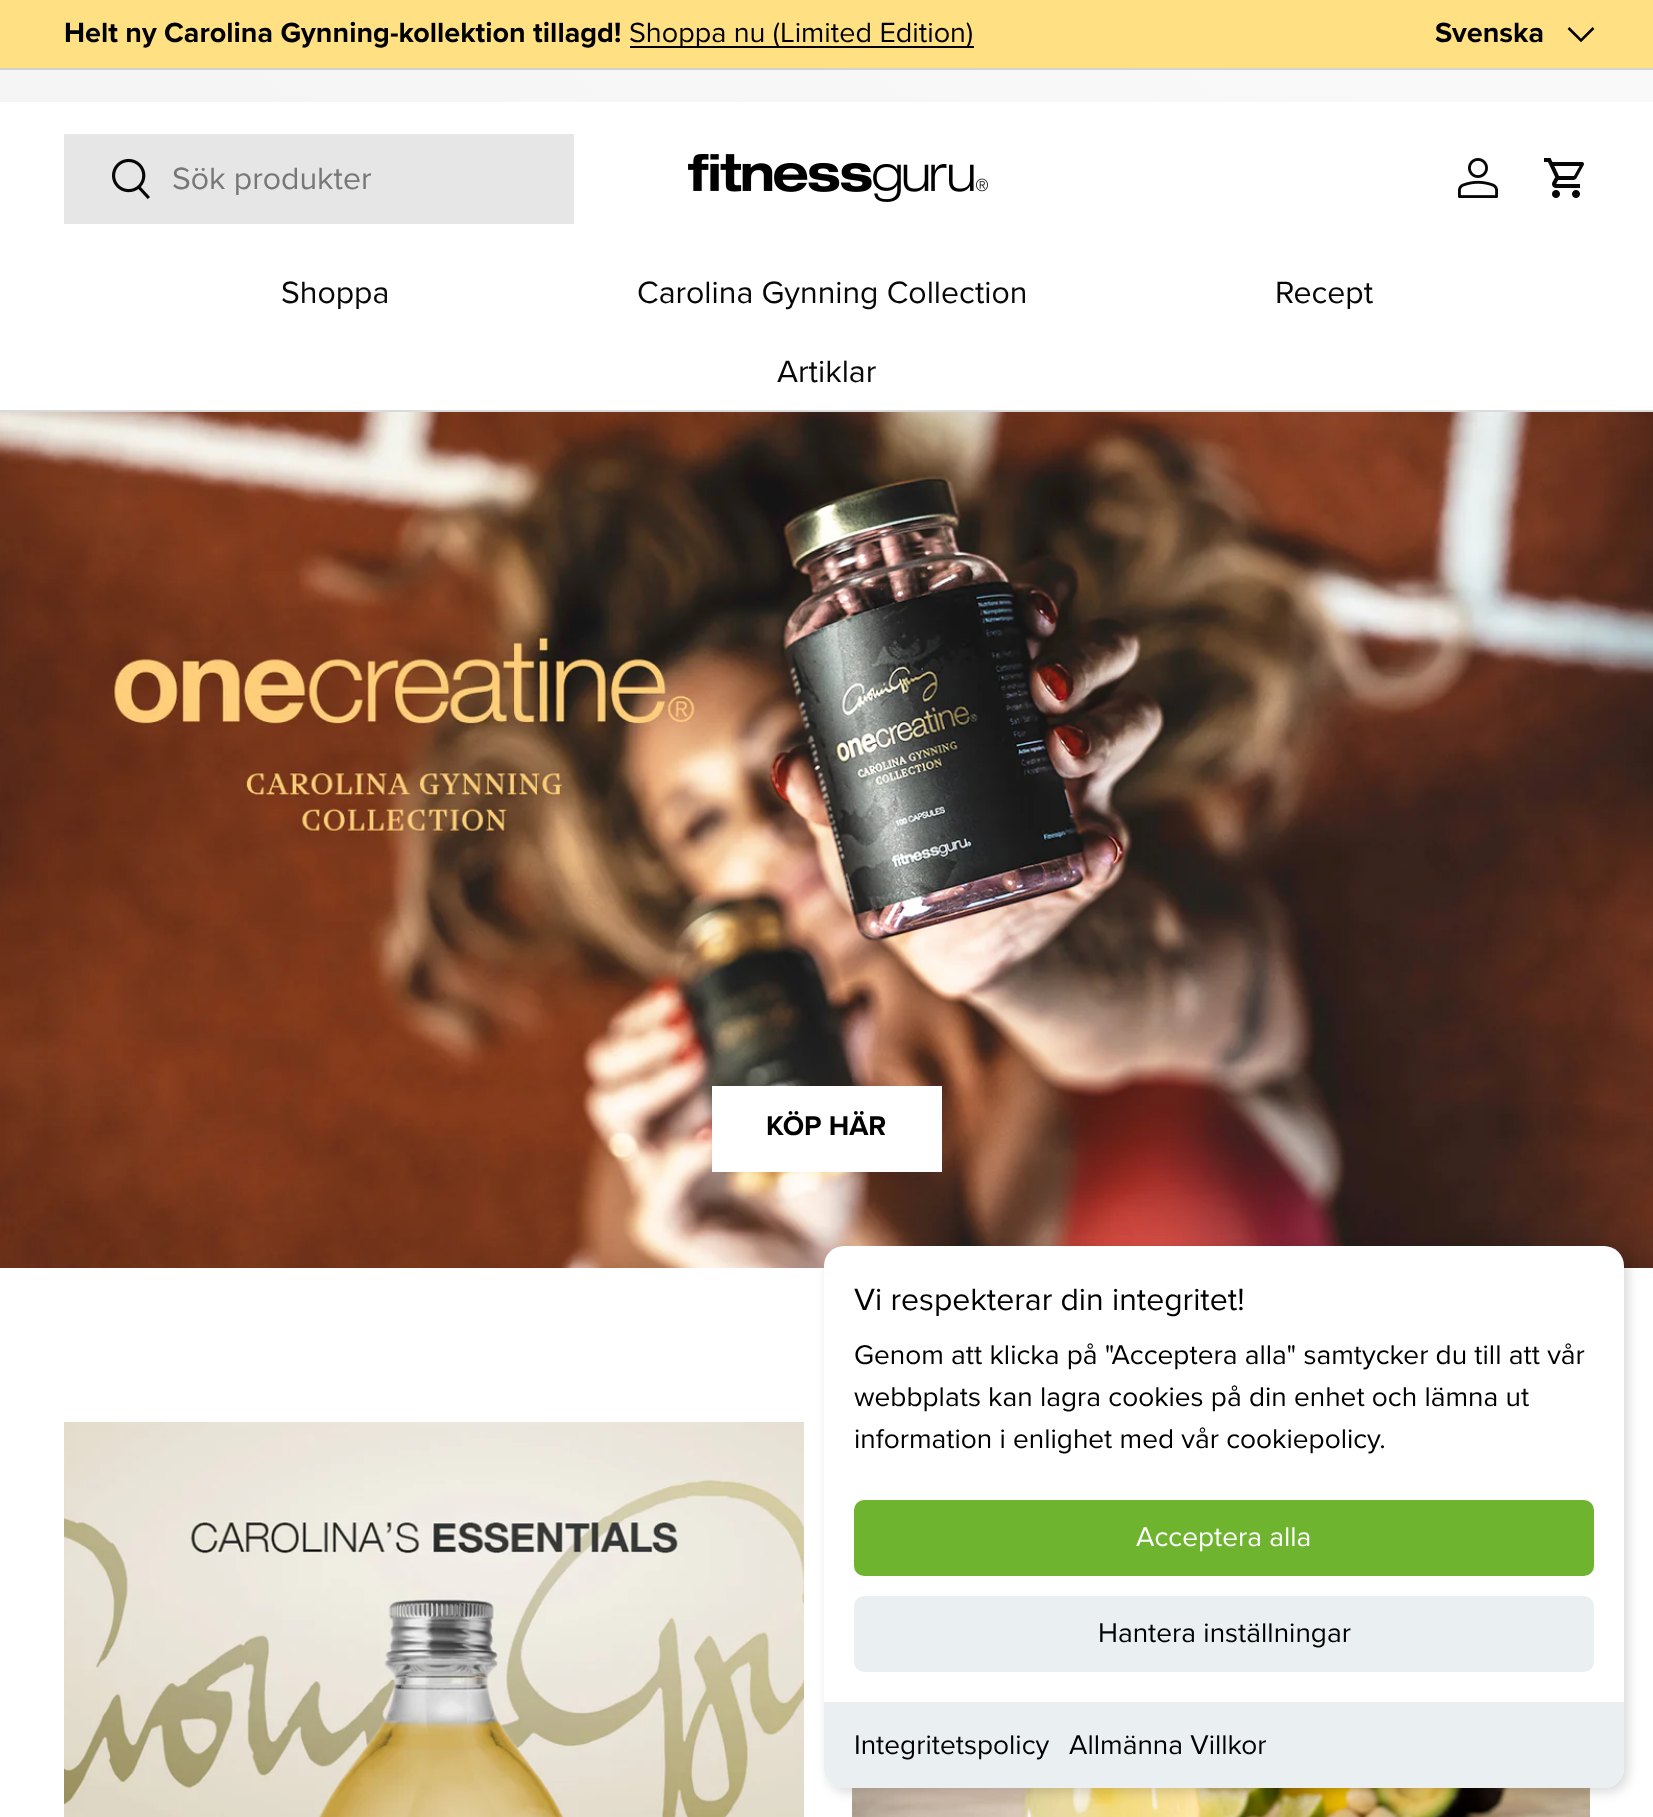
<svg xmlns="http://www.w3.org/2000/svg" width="1653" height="1817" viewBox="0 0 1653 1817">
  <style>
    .t1 { font: bold 28.75px Proxima Nova; fill: #000; }
    .t2 { font: 28.75px Proxima Nova; fill: #000; }
    .t3 { font: 32px Proxima Nova; fill: #777; }
    .t4 { font: 32px Proxima Nova; fill: #070707; }
    .t5 { font: bold 28px Proxima Nova; fill: #000; }
    .t6 { font: 32px Proxima Nova; fill: #000; }
    .t7 { font: 28px Proxima Nova; fill: #000; }
    .t8 { font: 28px Proxima Nova; fill: #fff; }
  </style>
  <defs>
    <linearGradient id="g1" gradientUnits="userSpaceOnUse" x1="391" y1="475" x2="1263" y2="-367"><stop offset="0.13" stop-color="#d0d0d0"/><stop offset="0.86" stop-color="#d4d4d4"/></linearGradient>
    <linearGradient id="g2" gradientUnits="userSpaceOnUse" x1="391" y1="507" x2="1263" y2="-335"><stop offset="0.13" stop-color="#f5f5f5"/><stop offset="0.86" stop-color="#f9f9f9"/></linearGradient>
    <linearGradient id="g3" gradientUnits="userSpaceOnUse" x1="272" y1="1047" x2="930" y2="1211"><stop offset="0.6" stop-color="#e6e6e6"/><stop offset="0.6" stop-color="#fff"/><stop offset="1" stop-color="#fff"/></linearGradient>
    <clipPath id="clip1"><rect x="824" y="1246" width="800" height="542" rx="20"/></clipPath>
  </defs>
  <rect width="100%" height="100%" fill="#fff"/>
  <rect x="0" y="0" width="1653" height="68" fill="#ffe183"/>
  <text x="64" y="42" class="t1">Helt ny Carolina Gynning-kollektion tillagd!</text>
  <rect x="630" y="46" width="344" height="2" fill="#000"/>
  <text x="629" y="42" class="t2">Shoppa nu (Limited Edition)</text>
  <text x="1435" y="42" class="t1">Svenska</text>
  <path d="M1593.5 28L1581 40.5L1568.5 28" fill="none" stroke="#000" stroke-width="2.5"/>
  <rect x="0" y="68" width="1653" height="2" fill="url(#g1)"/>
  <rect x="0" y="70" width="1653" height="32" fill="url(#g2)"/>
  <rect x="0" y="410" width="1653" height="2" fill="#dadada"/>
  <rect x="64" y="134" width="510" height="90" fill="#e6e6e6"/>
  <image x="112" y="158" width="38" height="41" href="images/1.png"/>
  <text x="172" y="189" class="t3">Sök produkter</text>
  <image x="688" y="154" width="300" height="48" href="images/2.png"/>
  <image x="1458" y="158" width="40" height="40" href="images/3.png"/>
  <image x="1544" y="158" width="40" height="40" href="images/4.png"/>
  <text x="281" y="303" class="t4">Shoppa</text>
  <text x="637" y="303" class="t4">Carolina Gynning Collection</text>
  <text x="1275" y="303" class="t4">Recept</text>
  <text x="777" y="382" class="t4">Artiklar</text>
  <image x="0" y="412" width="1653" height="856" href="images/5.png"/>
  <rect x="714" y="1088" width="226" height="82" fill="url(#g3)"/>
  <rect x="713" y="1087" width="228" height="84" fill="none" stroke="#fff" stroke-width="2"/>
  <text x="766" y="1135" class="t5">KÖP HÄR</text>
  <image x="64" y="1422" width="740" height="395" href="images/6.png"/>
  <image x="852" y="1788" width="738" height="29" href="images/7.png"/>
  <rect x="828" y="1250" width="800" height="542" rx="20" fill="#00000026" filter="blur(6px)"/>
  <rect x="824" y="1246" width="800" height="542" rx="20" fill="#fff"/>
  <text x="854" y="1310" class="t6">Vi respekterar din integritet!</text>
  <text x="854" y="1364" class="t7">Genom att klicka på "Acceptera alla" samtycker du till att vår</text>
  <text x="854" y="1406" class="t7">webbplats kan lagra cookies på din enhet och lämna ut</text>
  <text x="854" y="1448" class="t7">information i enlighet med vår cookiepolicy.</text>
  <rect x="854" y="1500" width="740" height="76" rx="10" fill="#6fb42f"/>
  <text x="1136" y="1546" class="t8">Acceptera alla</text>
  <rect x="854" y="1596" width="740" height="76" rx="10" fill="#eaeff2"/>
  <text x="1098" y="1642" class="t7">Hantera inställningar</text>
  <path d="M824 1702H1624V1768C1624 1779 1615 1788 1604 1788H844C833 1788 824 1779 824 1768Z" fill="#eaeff2"/>
  <rect x="824" y="1702" width="800" height="2" fill="#eee"/>
  <g clip-path="url(#clip1)">
    <rect x="835" y="1786" width="778" height="2" fill="#eee"/>
  </g>
  <text x="854" y="1754" class="t7">Integritetspolicy</text>
  <text x="1069" y="1754" class="t7">Allmänna Villkor</text>
</svg>
